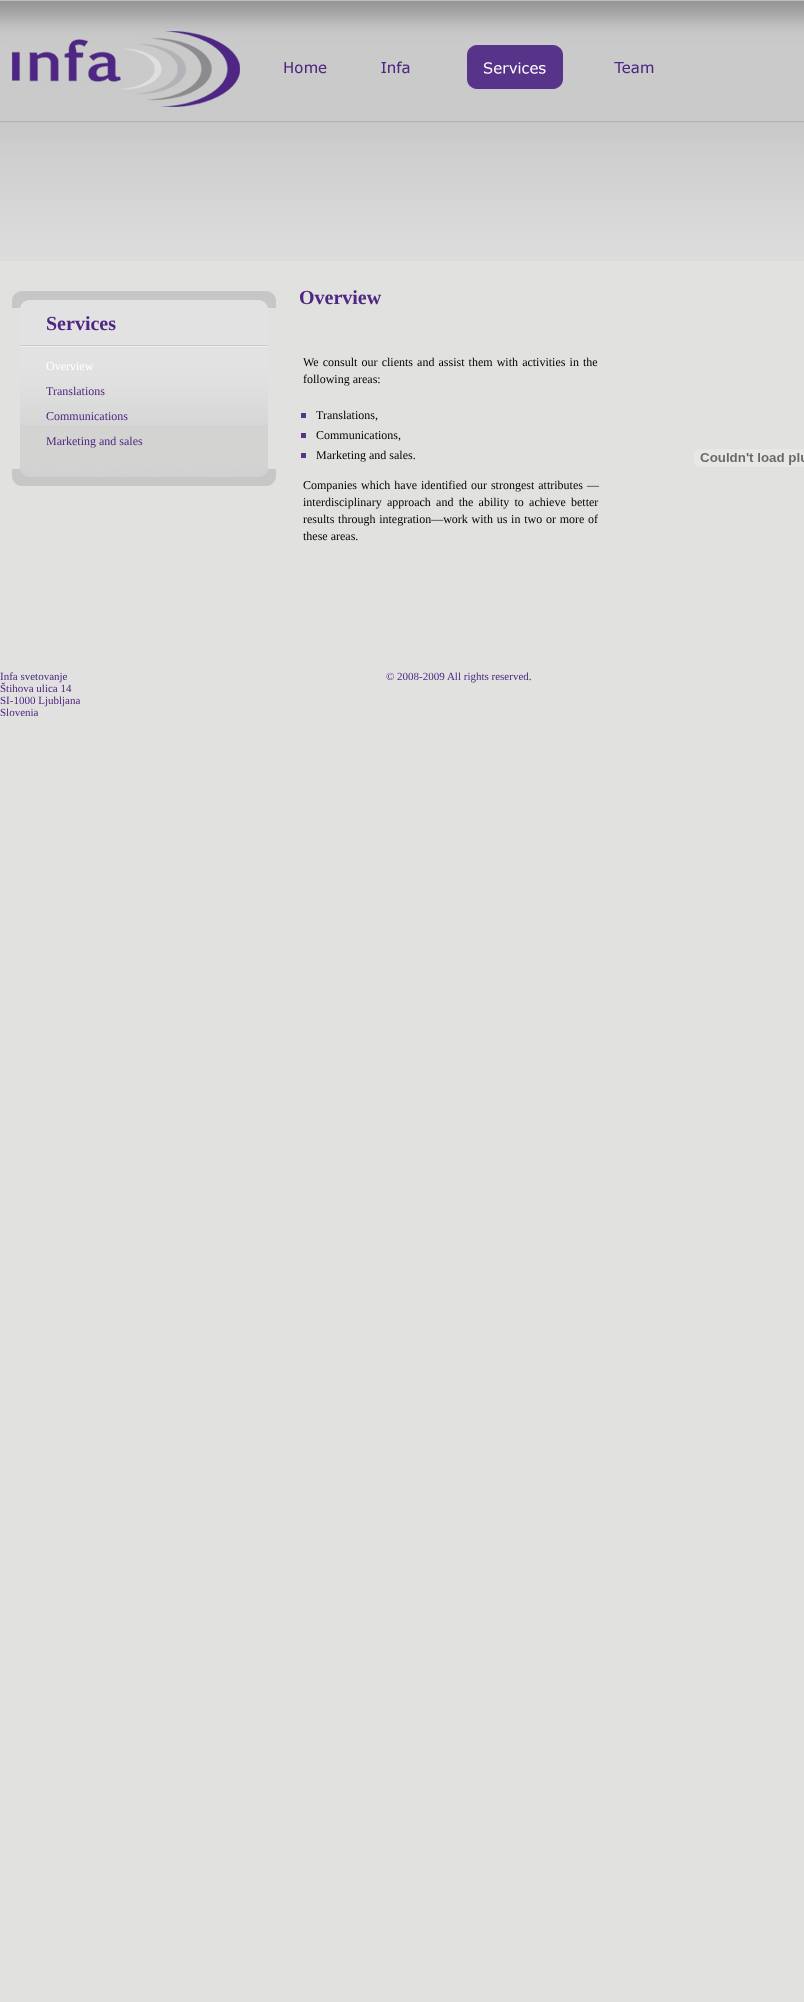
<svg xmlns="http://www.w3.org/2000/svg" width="804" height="2002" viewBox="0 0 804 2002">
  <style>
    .t1 { font: bold 20px Liberation Serif; fill: #4e2683; }
    .t2 { font: 12px Liberation Serif; fill: #fff; }
    .t3 { font: 12px Liberation Serif; fill: #4e2683; }
    .t4 { font: 12px Liberation Serif; fill: #000; }
    .t5 { font: 11px Liberation Serif; fill: #4e2683; }
  </style>
  <rect width="100%" height="100%" fill="#e1e1e0"/>
  <image x="0" y="0" width="804" height="261" href="images/1.png"/>
  <image x="12" y="31" width="228" height="76" href="images/2.png"/>
  <image x="284" y="62" width="44" height="15" href="images/3.png"/>
  <image x="381" y="61" width="29" height="15" href="images/4.png"/>
  <image x="467" y="45" width="96" height="44" href="images/5.png"/>
  <image x="610" y="62" width="48" height="15" href="images/6.png"/>
  <image x="12" y="291" width="264" height="17" href="images/7.png"/>
  <rect x="20" y="425" width="248" height="44" fill="#d3d3d2"/>
  <image x="20" y="308" width="248" height="117" href="images/8.png"/>
  <text x="46" y="330" class="t1">Services</text>
  <text x="46" y="370" class="t2">Overview</text>
  <text x="46" y="395" class="t3">Translations</text>
  <text x="46" y="420" class="t3">Communications</text>
  <text x="46" y="445" class="t3">Marketing and sales</text>
  <image x="12" y="469" width="264" height="17" href="images/9.png"/>
  <text x="299" y="304" class="t1">Overview</text>
  <text x="303" y="366" word-spacing="1.1" class="t4">We consult our clients and assist them with activities in the</text>
  <text x="303" y="383" class="t4">following areas:</text>
  <rect x="301" y="413" width="5" height="5" fill="#58338a"/>
  <text x="316" y="419" class="t4">Translations,</text>
  <rect x="301" y="433" width="5" height="5" fill="#58338a"/>
  <text x="316" y="439" class="t4">Communications,</text>
  <rect x="301" y="453" width="5" height="5" fill="#58338a"/>
  <text x="316" y="459" class="t4">Marketing and sales.</text>
  <text x="303" y="489" word-spacing="1" class="t4">Companies which have identified our strongest attributes —</text>
  <text x="303" y="506" word-spacing="2.25" class="t4">interdisciplinary approach and the ability to achieve better</text>
  <text x="303" y="523" word-spacing="0.75" class="t4">results through integration—work with us in two or more of</text>
  <text x="303" y="540" class="t4">these areas.</text>
  <image x="694" y="449" width="110" height="18" href="images/10.png"/>
  <text x="0" y="680" class="t5">Infa svetovanje</text>
  <text x="0" y="692" class="t5">Štihova ulica 14</text>
  <text x="0" y="704" class="t5">SI-1000 Ljubljana</text>
  <text x="0" y="716" class="t5">Slovenia</text>
  <text x="386" y="680" class="t5">© 2008-2009 All rights reserved.</text>
</svg>
